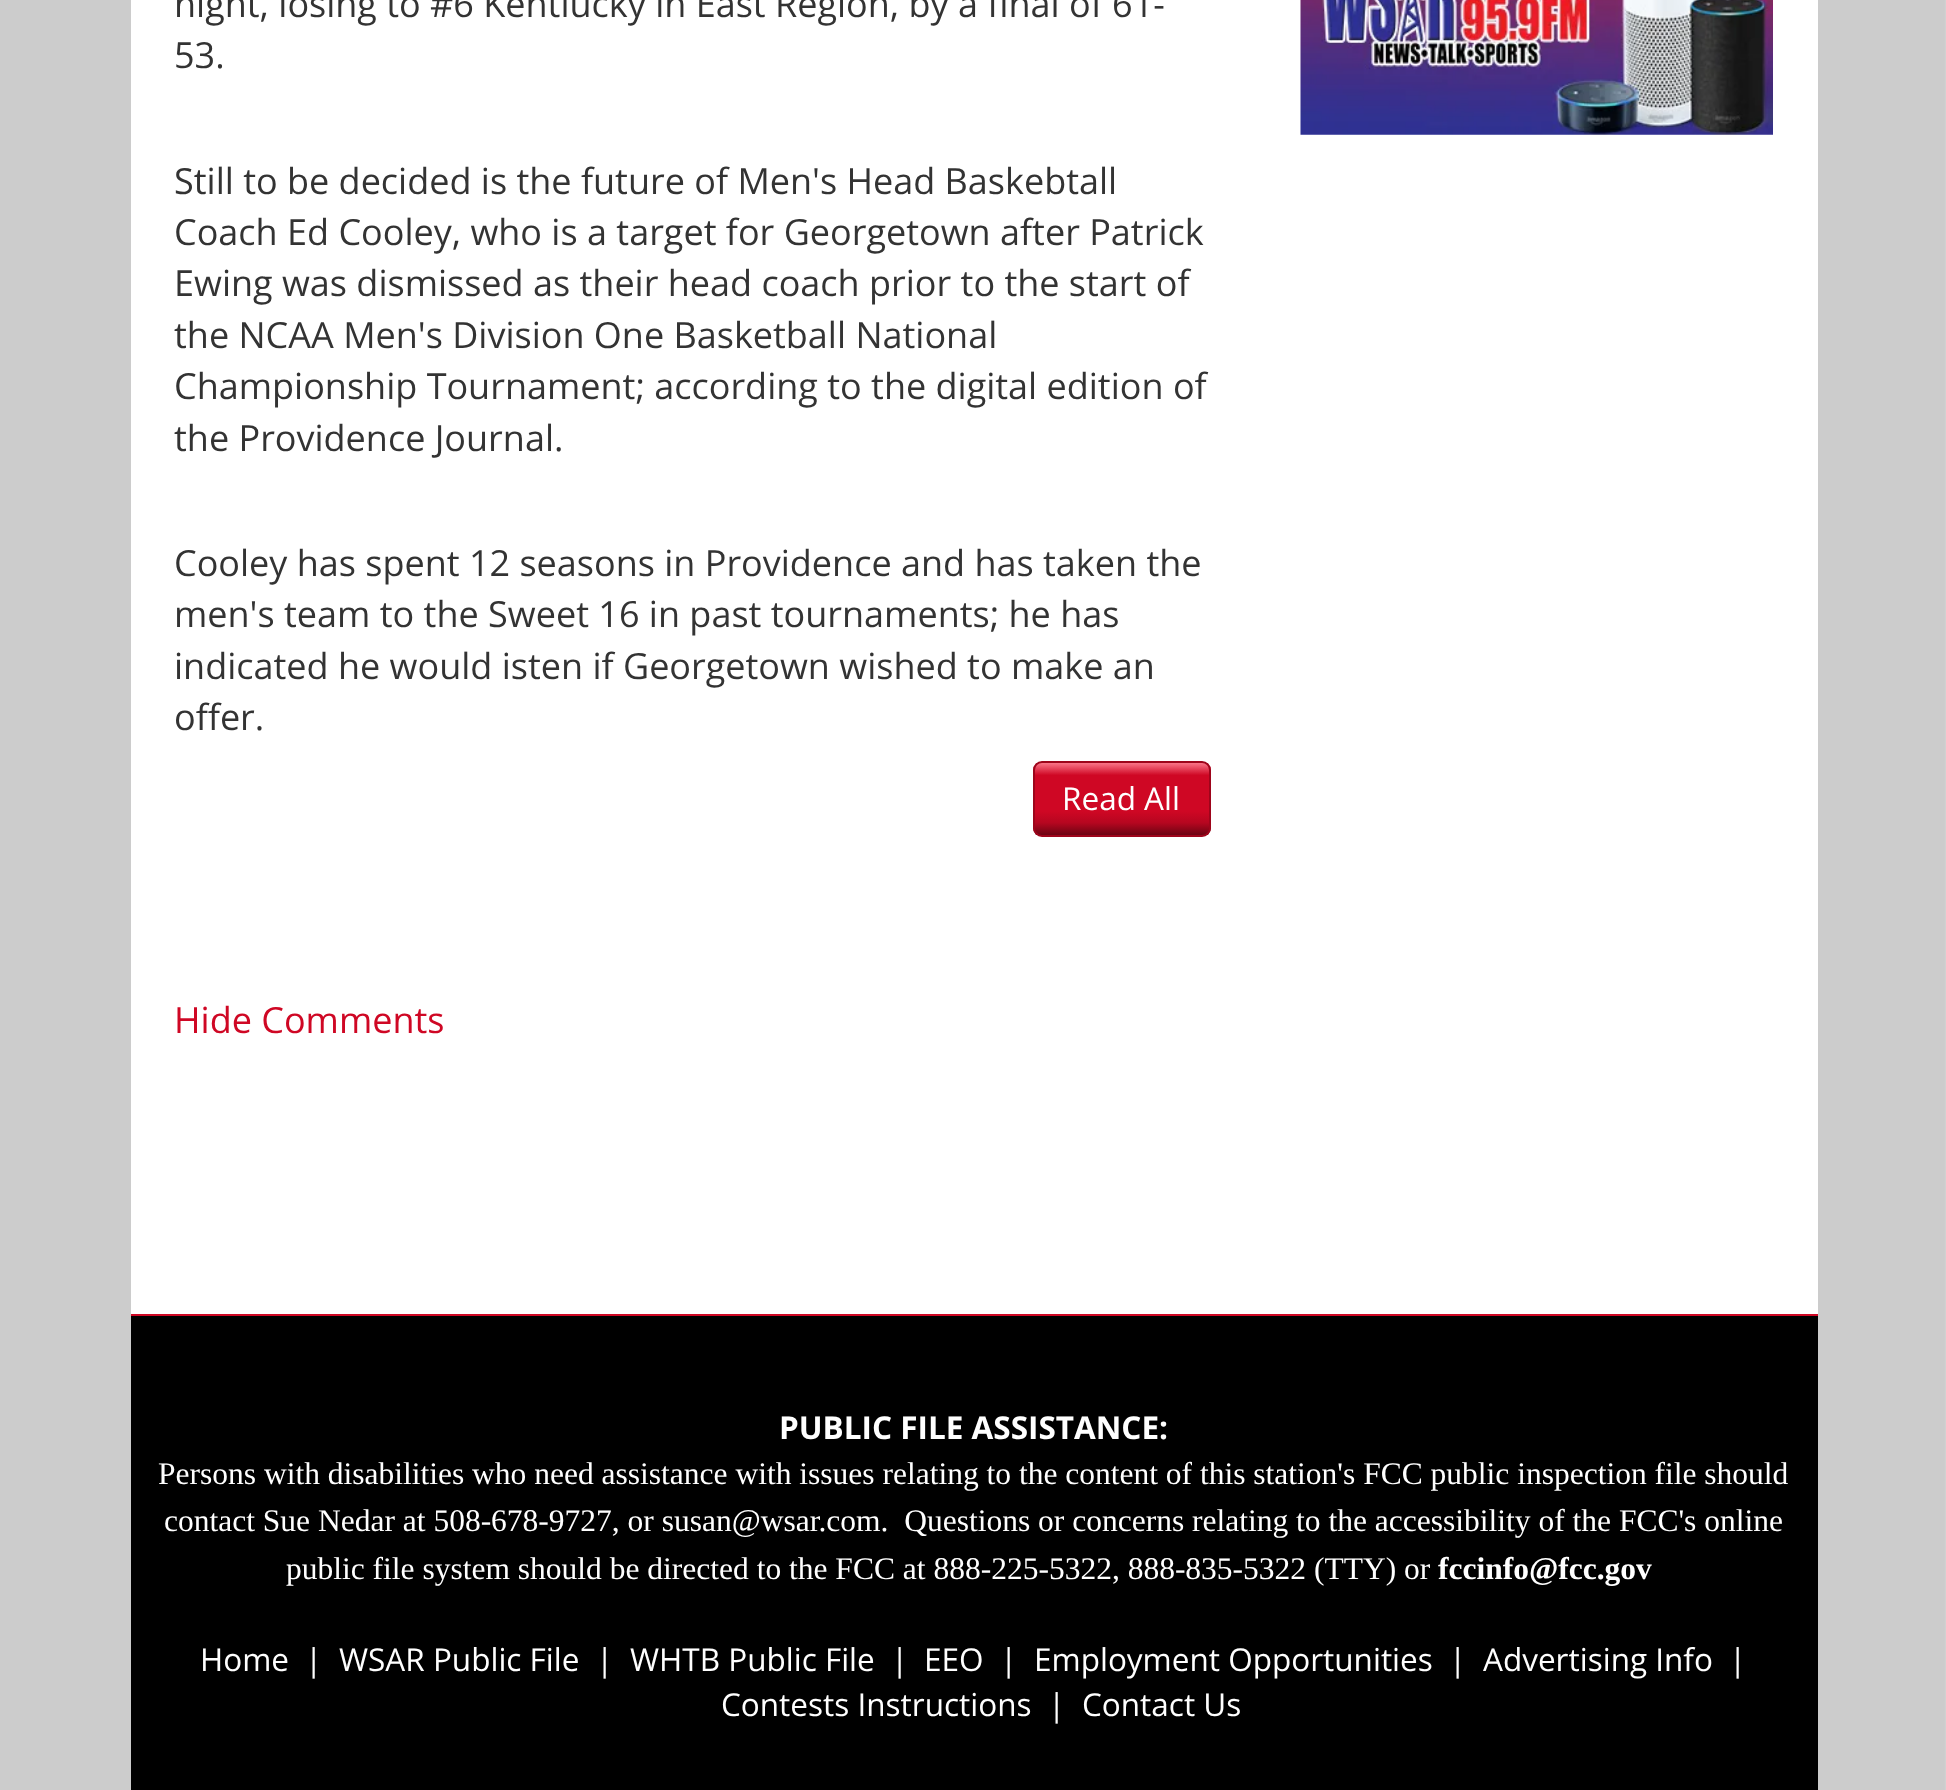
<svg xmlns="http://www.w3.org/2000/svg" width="1946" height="1790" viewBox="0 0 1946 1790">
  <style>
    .t1 { font: 36px Open Sans; fill: #333; }
    .t2 { font: 31.5px Open Sans; fill: #fff; }
    .t3 { font: 36px Open Sans; fill: #cf0724; }
    .t4 { font: bold 31.5px Open Sans; fill: #fff; }
    .t5 { font: 31.5px Liberation Serif; fill: #fff; }
    .t6 { font: bold 31.5px Liberation Serif; fill: #fff; }
  </style>
  <defs>
    <clipPath id="clip1"><rect x="1033" y="761" width="178" height="76" rx="9"/></clipPath>
    <linearGradient id="g1" gradientUnits="userSpaceOnUse" x1="1122" y1="763" x2="1122" y2="835"><stop offset="0" stop-color="#fa7588"/><stop offset="0.17" stop-color="#cf0724"/><stop offset="0.67" stop-color="#cf0724"/><stop offset="0.83" stop-color="#b60620"/><stop offset="1" stop-color="#6c0413"/></linearGradient>
  </defs>
  <rect width="100%" height="100%" fill="#fff"/>
  <image x="0" y="0" width="1946" height="1790" href="images/1.png"/>
  <rect x="131" y="0" width="1687" height="1314" fill="#fff"/>
  <text x="174" y="17" class="t1">night, losing to #6 Kentiucky in East Region, by a final of 61-</text>
  <text x="174" y="68" class="t1">53.</text>
  <text x="174" y="194" class="t1">Still to be decided is the future of Men's Head Baskebtall</text>
  <text x="174" y="245" class="t1">Coach Ed Cooley, who is a target for Georgetown after Patrick</text>
  <text x="174" y="296" class="t1">Ewing was dismissed as their head coach prior to the start of</text>
  <text x="174" y="348" class="t1">the NCAA Men's Division One Basketball National</text>
  <text x="174" y="399" class="t1">Championship Tournament; according to the digital edition of</text>
  <text x="174" y="451" class="t1">the Providence Journal.</text>
  <text x="174" y="576" class="t1">Cooley has spent 12 seasons in Providence and has taken the</text>
  <text x="174" y="627" class="t1">men's team to the Sweet 16 in past tournaments; he has</text>
  <text x="174" y="679" class="t1">indicated he would isten if Georgetown wished to make an</text>
  <text x="174" y="730" class="t1">offer.</text>
  <g clip-path="url(#clip1)">
    <rect x="1033" y="763" width="178" height="72" fill="url(#g1)"/>
  </g>
  <rect x="1034" y="762" width="176" height="74" rx="8" fill="none" stroke="#9e051b" stroke-width="2"/>
  <text x="1062" y="810" class="t2">Read All</text>
  <text x="174" y="1033" class="t3">Hide Comments</text>
  <image x="1300" y="0" width="473" height="135" href="images/2.png"/>
  <rect x="131" y="1316" width="1687" height="474" fill="#000"/>
  <rect x="131" y="1314" width="1687" height="2" fill="#cf0724"/>
  <text x="779" y="1439" class="t4">PUBLIC FILE ASSISTANCE:</text>
  <text x="158" y="1484" class="t5">Persons with disabilities who need assistance with issues relating to the content of this station's FCC public inspection file should</text>
  <text x="164" y="1531" class="t5" xml:space="preserve">contact Sue Nedar at 508-678-9727, or susan@wsar.com.  Questions or concerns relating to the accessibility of the FCC's online</text>
  <text x="286" y="1579" class="t5">public file system should be directed to the FCC at 888-225-5322, 888-835-5322 (TTY) or</text>
  <text x="1438" y="1579" class="t6">fccinfo@fcc.gov</text>
  <text x="200" y="1671" class="t2">Home</text>
  <text x="305" y="1671" class="t2">|</text>
  <text x="339" y="1671" class="t2">WSAR Public File</text>
  <text x="596" y="1671" class="t2">|</text>
  <text x="630" y="1671" class="t2">WHTB Public File</text>
  <text x="891" y="1671" class="t2">|</text>
  <text x="924" y="1671" class="t2">EEO</text>
  <text x="1000" y="1671" class="t2">|</text>
  <text x="1034" y="1671" class="t2">Employment Opportunities</text>
  <text x="1449" y="1671" class="t2">|</text>
  <text x="1483" y="1671" class="t2">Advertising Info</text>
  <text x="1729" y="1671" class="t2">|</text>
  <text x="721" y="1716" class="t2">Contests Instructions</text>
  <text x="1048" y="1716" class="t2">|</text>
  <text x="1082" y="1716" class="t2">Contact Us</text>
</svg>
